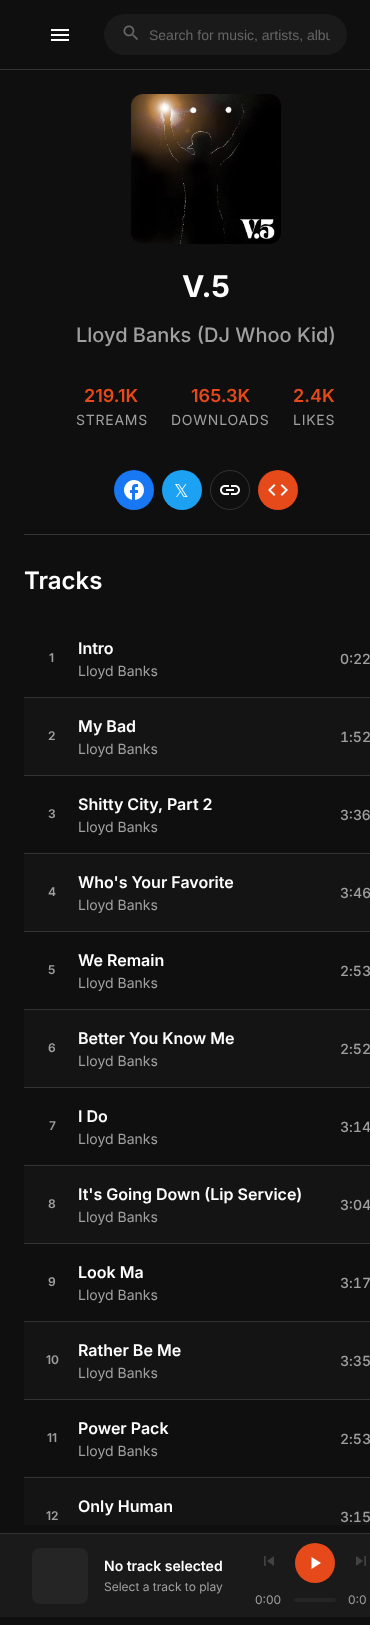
<svg xmlns="http://www.w3.org/2000/svg" width="370" height="1625" viewBox="0 0 370 1625">
  <style>
    .t1 { font: 14px Liberation Sans; fill: #666; }
    .t2 { font: bold 30px Inter; fill: #fff; }
    .t3 { font: 500 20px Inter; fill: #a0a0a0; }
    .t4 { font: 600 18px Inter; fill: #e6491a; }
    .t5 { font: 14px Inter; letter-spacing: 0.75px; fill: #a0a0a0; }
    .t6 { font: 18px DejaVu Sans; fill: #fff; }
    .t7 { font: 600 24px Inter; fill: #fff; }
    .t8 { font: 600 12px Inter; fill: #a0a0a0; }
    .t9 { font: 600 16px Inter; fill: #fff; }
    .t10 { font: 14px Inter; fill: #a0a0a0; }
    .t11 { font: 500 14px Inter; fill: #a0a0a0; }
    .t12 { font: 500 14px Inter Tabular; fill: #a0a0a0; }
    .t13 { font: 600 14px Inter; fill: #fff; }
    .t14 { font: 12px Inter; fill: #a0a0a0; }
  </style>
  <defs>
    <clipPath id="clip1"><rect x="149" y="27" width="181" height="16"/></clipPath>
  </defs>
  <rect width="100%" height="100%" fill="#0f0f0f"/>
  <rect x="0" y="69" width="370" height="1" fill="#333"/>
  <image x="51" y="29" width="18" height="12" href="images/1.png"/>
  <rect x="104" y="14" width="243" height="41" rx="20.5" fill="#1a1a1a"/>
  <image x="123" y="25" width="15" height="15" href="images/2.png"/>
  <g clip-path="url(#clip1)">
    <text x="149" y="40" class="t1">Search for music, artists, albu</text>
  </g>
  <rect x="24" y="534" width="346" height="1" fill="#333"/>
  <image x="131" y="94" width="150" height="150" href="images/3.png"/>
  <text x="182" y="297" class="t2">V.5</text>
  <text x="76" y="342" class="t3">Lloyd Banks (DJ Whoo Kid)</text>
  <text x="84" y="402" class="t4">219.1K</text>
  <text x="76" y="425" class="t5">STREAMS</text>
  <text x="191" y="402" class="t4">165.3K</text>
  <text x="171" y="425" class="t5">DOWNLOADS</text>
  <text x="293" y="402" class="t4">2.4K</text>
  <text x="293" y="425" class="t5">LIKES</text>
  <circle cx="134" cy="490" r="20" fill="#1877f2"/>
  <image x="124" y="480" width="20" height="20" href="images/4.png"/>
  <circle cx="182" cy="490" r="20" fill="#1da1f2"/>
  <text x="174" y="497" class="t6">𝕏</text>
  <circle cx="230" cy="490" r="19.5" fill="none" stroke="#333"/>
  <image x="220" y="485" width="20" height="10" href="images/5.png"/>
  <circle cx="278" cy="490" r="20" fill="#e6491a"/>
  <image x="268" y="484" width="20" height="12" href="images/6.png"/>
  <text x="24" y="589" class="t7">Tracks</text>
  <rect x="24" y="697" width="346" height="1" fill="#333"/>
  <text x="49" y="662" class="t8">1</text>
  <text x="78" y="654" class="t9">Intro</text>
  <text x="78" y="676" class="t10">Lloyd Banks</text>
  <text x="340" y="664" class="t11">0:22</text>
  <rect x="24" y="698" width="346" height="77" fill="#141414"/>
  <rect x="24" y="775" width="346" height="1" fill="#333"/>
  <text x="48" y="740" class="t8">2</text>
  <text x="78" y="732" class="t9">My Bad</text>
  <text x="78" y="754" class="t10">Lloyd Banks</text>
  <text x="340" y="742" class="t12">1:52</text>
  <rect x="24" y="853" width="346" height="1" fill="#333"/>
  <text x="48" y="818" class="t8">3</text>
  <text x="78" y="810" class="t9">Shitty City, Part 2</text>
  <text x="78" y="832" class="t10">Lloyd Banks</text>
  <text x="340" y="820" class="t11">3:36</text>
  <rect x="24" y="854" width="346" height="77" fill="#141414"/>
  <rect x="24" y="931" width="346" height="1" fill="#333"/>
  <text x="48" y="896" class="t8">4</text>
  <text x="78" y="888" class="t9">Who's Your Favorite</text>
  <text x="78" y="910" class="t10">Lloyd Banks</text>
  <text x="340" y="898" class="t11">3:46</text>
  <rect x="24" y="1009" width="346" height="1" fill="#333"/>
  <text x="48" y="974" class="t8">5</text>
  <text x="78" y="966" class="t9">We Remain</text>
  <text x="78" y="988" class="t10">Lloyd Banks</text>
  <text x="340" y="976" class="t12">2:53</text>
  <rect x="24" y="1010" width="346" height="77" fill="#141414"/>
  <rect x="24" y="1087" width="346" height="1" fill="#333"/>
  <text x="48" y="1052" class="t8">6</text>
  <text x="78" y="1044" class="t9">Better You Know Me</text>
  <text x="78" y="1066" class="t10">Lloyd Banks</text>
  <text x="340" y="1054" class="t12">2:52</text>
  <rect x="24" y="1165" width="346" height="1" fill="#333"/>
  <text x="49" y="1130" class="t8">7</text>
  <text x="78" y="1122" class="t9">I Do</text>
  <text x="78" y="1144" class="t10">Lloyd Banks</text>
  <text x="340" y="1132" class="t12">3:14</text>
  <rect x="24" y="1166" width="346" height="77" fill="#141414"/>
  <rect x="24" y="1243" width="346" height="1" fill="#333"/>
  <text x="48" y="1208" class="t8">8</text>
  <text x="78" y="1200" class="t9">It's Going Down (Lip Service)</text>
  <text x="78" y="1222" class="t10">Lloyd Banks</text>
  <text x="340" y="1210" class="t11">3:04</text>
  <rect x="24" y="1321" width="346" height="1" fill="#333"/>
  <text x="48" y="1286" class="t8">9</text>
  <text x="78" y="1278" class="t9">Look Ma</text>
  <text x="78" y="1300" class="t10">Lloyd Banks</text>
  <text x="340" y="1288" class="t12">3:17</text>
  <rect x="24" y="1322" width="346" height="77" fill="#141414"/>
  <rect x="24" y="1399" width="346" height="1" fill="#333"/>
  <text x="46" y="1364" class="t8">10</text>
  <text x="78" y="1356" class="t9">Rather Be Me</text>
  <text x="78" y="1378" class="t10">Lloyd Banks</text>
  <text x="340" y="1366" class="t12">3:35</text>
  <rect x="24" y="1477" width="346" height="1" fill="#333"/>
  <text x="47" y="1442" class="t8">11</text>
  <text x="78" y="1434" class="t9">Power Pack</text>
  <text x="78" y="1456" class="t10">Lloyd Banks</text>
  <text x="340" y="1444" class="t12">2:53</text>
  <rect x="24" y="1478" width="346" height="47" fill="#141414"/>
  <text x="46" y="1520" class="t8">12</text>
  <text x="78" y="1512" class="t9">Only Human</text>
  <text x="340" y="1522" class="t12">3:15</text>
  <rect x="0" y="1534" width="370" height="83" fill="#1a1a1a"/>
  <rect x="0" y="1533" width="370" height="1" fill="#333"/>
  <rect x="32" y="1548" width="56" height="56" rx="8" fill="#252525"/>
  <text x="104" y="1571" class="t13">No track selected</text>
  <text x="104" y="1591" class="t14">Select a track to play</text>
  <image x="264" y="1556" width="10" height="10" href="images/7.png"/>
  <circle cx="315" cy="1563" r="20" fill="#e6491a"/>
  <path d="M311.5 1557L321 1563L311.5 1569Z" fill="#fff"/>
  <image x="356" y="1556" width="10" height="10" href="images/8.png"/>
  <text x="255" y="1604" class="t14">0:00</text>
  <rect x="294" y="1598" width="42" height="4" rx="2" fill="#252525"/>
  <text x="348" y="1604" class="t14">0:0</text>
</svg>
